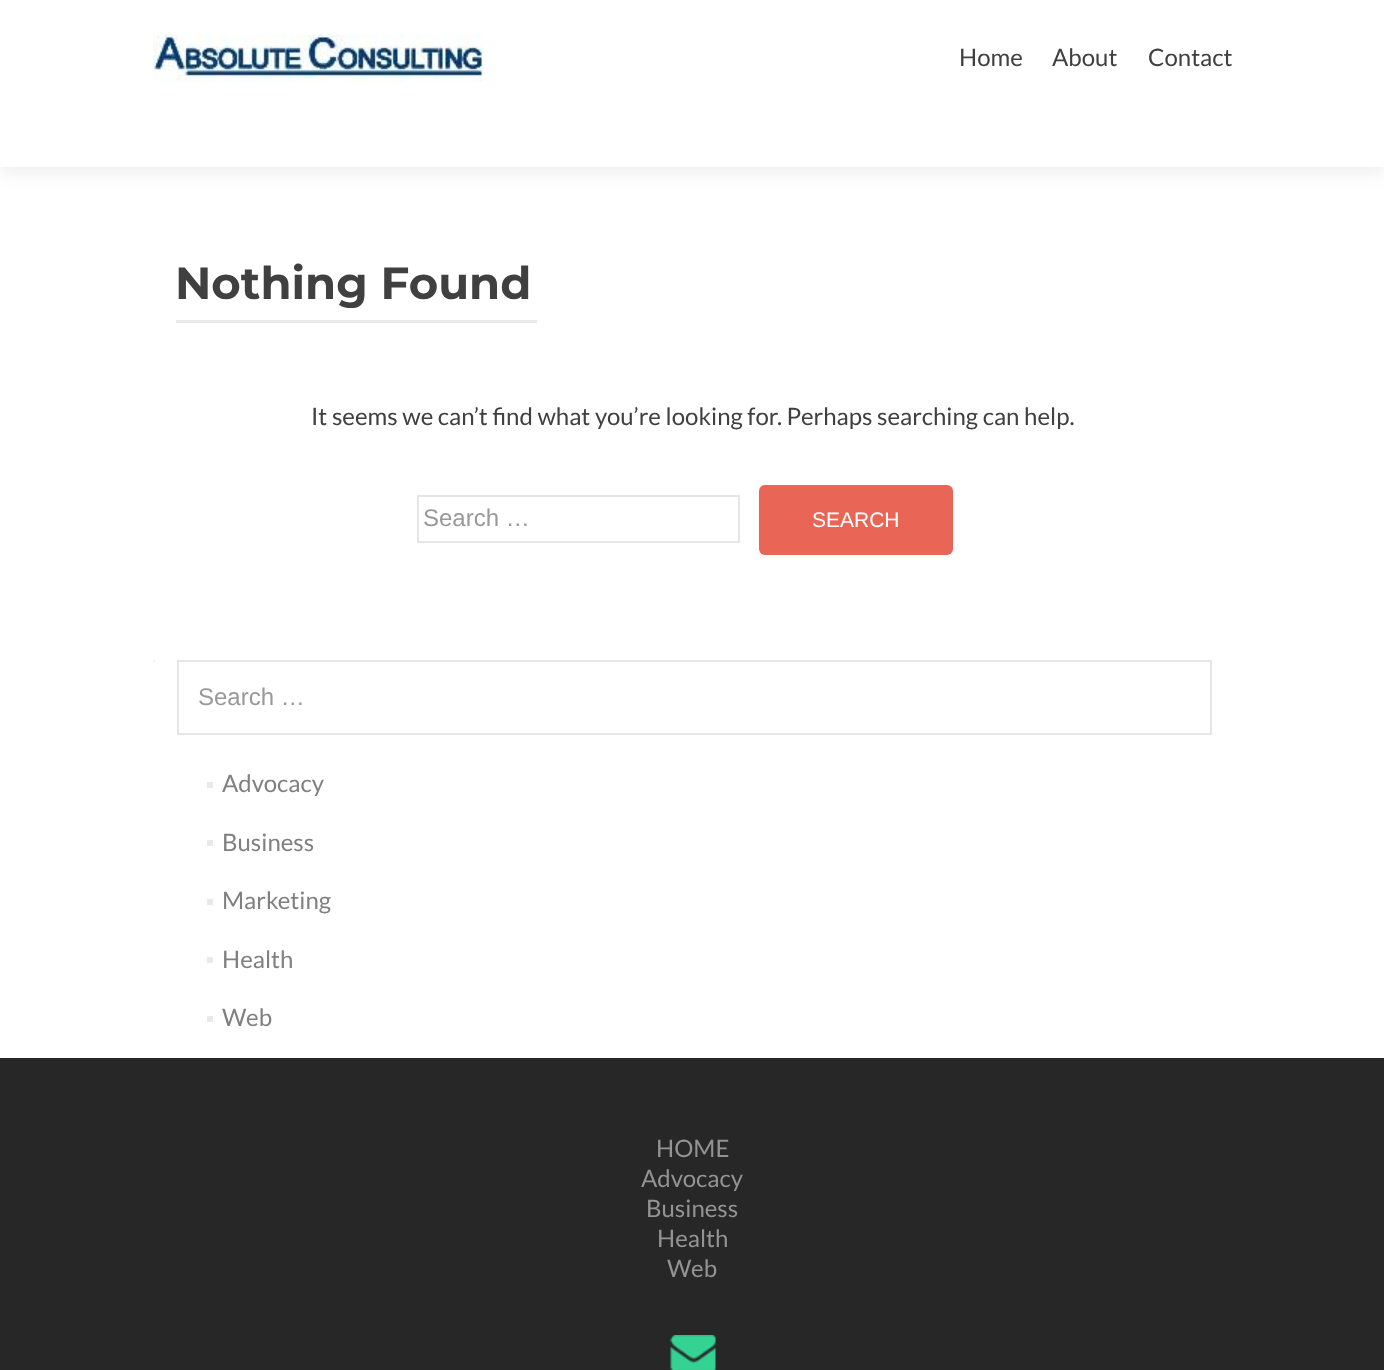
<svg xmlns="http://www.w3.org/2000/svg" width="1384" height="1370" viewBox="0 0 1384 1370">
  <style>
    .t1 { font: 24px Lato; fill: #404040; }
    .t2 { font: 100 45px Montserrat; fill: #404040; }
    .t3 { font: 24px Liberation Sans; fill: #999; }
    .t4 { font: 21px Liberation Sans; fill: #fff; }
    .t5 { font: 24px Lato; fill: #808080; }
    .t6 { font: 24px Lato; fill: #939393; }
  </style>
  <rect width="100%" height="100%" fill="#fff"/>
  <rect x="0" y="8" width="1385" height="166" fill="#32323214" filter="blur(8px)"/>
  <rect x="0" y="0" width="1384" height="167" fill="#fff"/>
  <image x="153" y="34" width="330" height="49" href="images/1.png"/>
  <text x="959" y="66" class="t1">Home</text>
  <text x="1052" y="66" class="t1">About</text>
  <text x="1148" y="66" class="t1">Contact</text>
  <text x="175" y="299" class="t2">Nothing Found</text>
  <rect x="176" y="320" width="361" height="3" fill="#e9e9e9"/>
  <text x="311" y="425" class="t1">It seems we can’t find what you’re looking for. Perhaps searching can help.</text>
  <rect x="418" y="496" width="321" height="46" fill="none" stroke="#e6e6e6" stroke-width="2"/>
  <text x="423" y="526" class="t3">Search …</text>
  <rect x="759" y="485" width="194" height="70" rx="6" fill="#e96656"/>
  <text x="812" y="527" class="t4">SEARCH</text>
  <rect x="153" y="660" width="2" height="2" fill="#f2f2f2"/>
  <rect x="178" y="661" width="1033" height="73" fill="none" stroke="#e6e6e6" stroke-width="2"/>
  <text x="198" y="705" class="t3">Search …</text>
  <rect x="207" y="782" width="6" height="6" fill="#e9e9e9"/>
  <text x="222" y="792" class="t5">Advocacy</text>
  <rect x="207" y="840" width="6" height="6" fill="#e9e9e9"/>
  <text x="222" y="851" class="t5">Business</text>
  <rect x="207" y="899" width="6" height="6" fill="#e9e9e9"/>
  <text x="222" y="909" class="t5">Marketing</text>
  <rect x="207" y="957" width="6" height="6" fill="#e9e9e9"/>
  <text x="222" y="968" class="t5">Health</text>
  <rect x="207" y="1016" width="6" height="6" fill="#e9e9e9"/>
  <text x="222" y="1026" class="t5">Web</text>
  <rect x="0" y="1058" width="1384" height="312" fill="#272727"/>
  <text x="656" y="1157" class="t6">HOME</text>
  <text x="641" y="1187" class="t6">Advocacy</text>
  <text x="646" y="1217" class="t6">Business</text>
  <text x="657" y="1247" class="t6">Health</text>
  <text x="667" y="1277" class="t6">Web</text>
  <image x="670" y="1335" width="46" height="35" href="images/2.png"/>
</svg>
